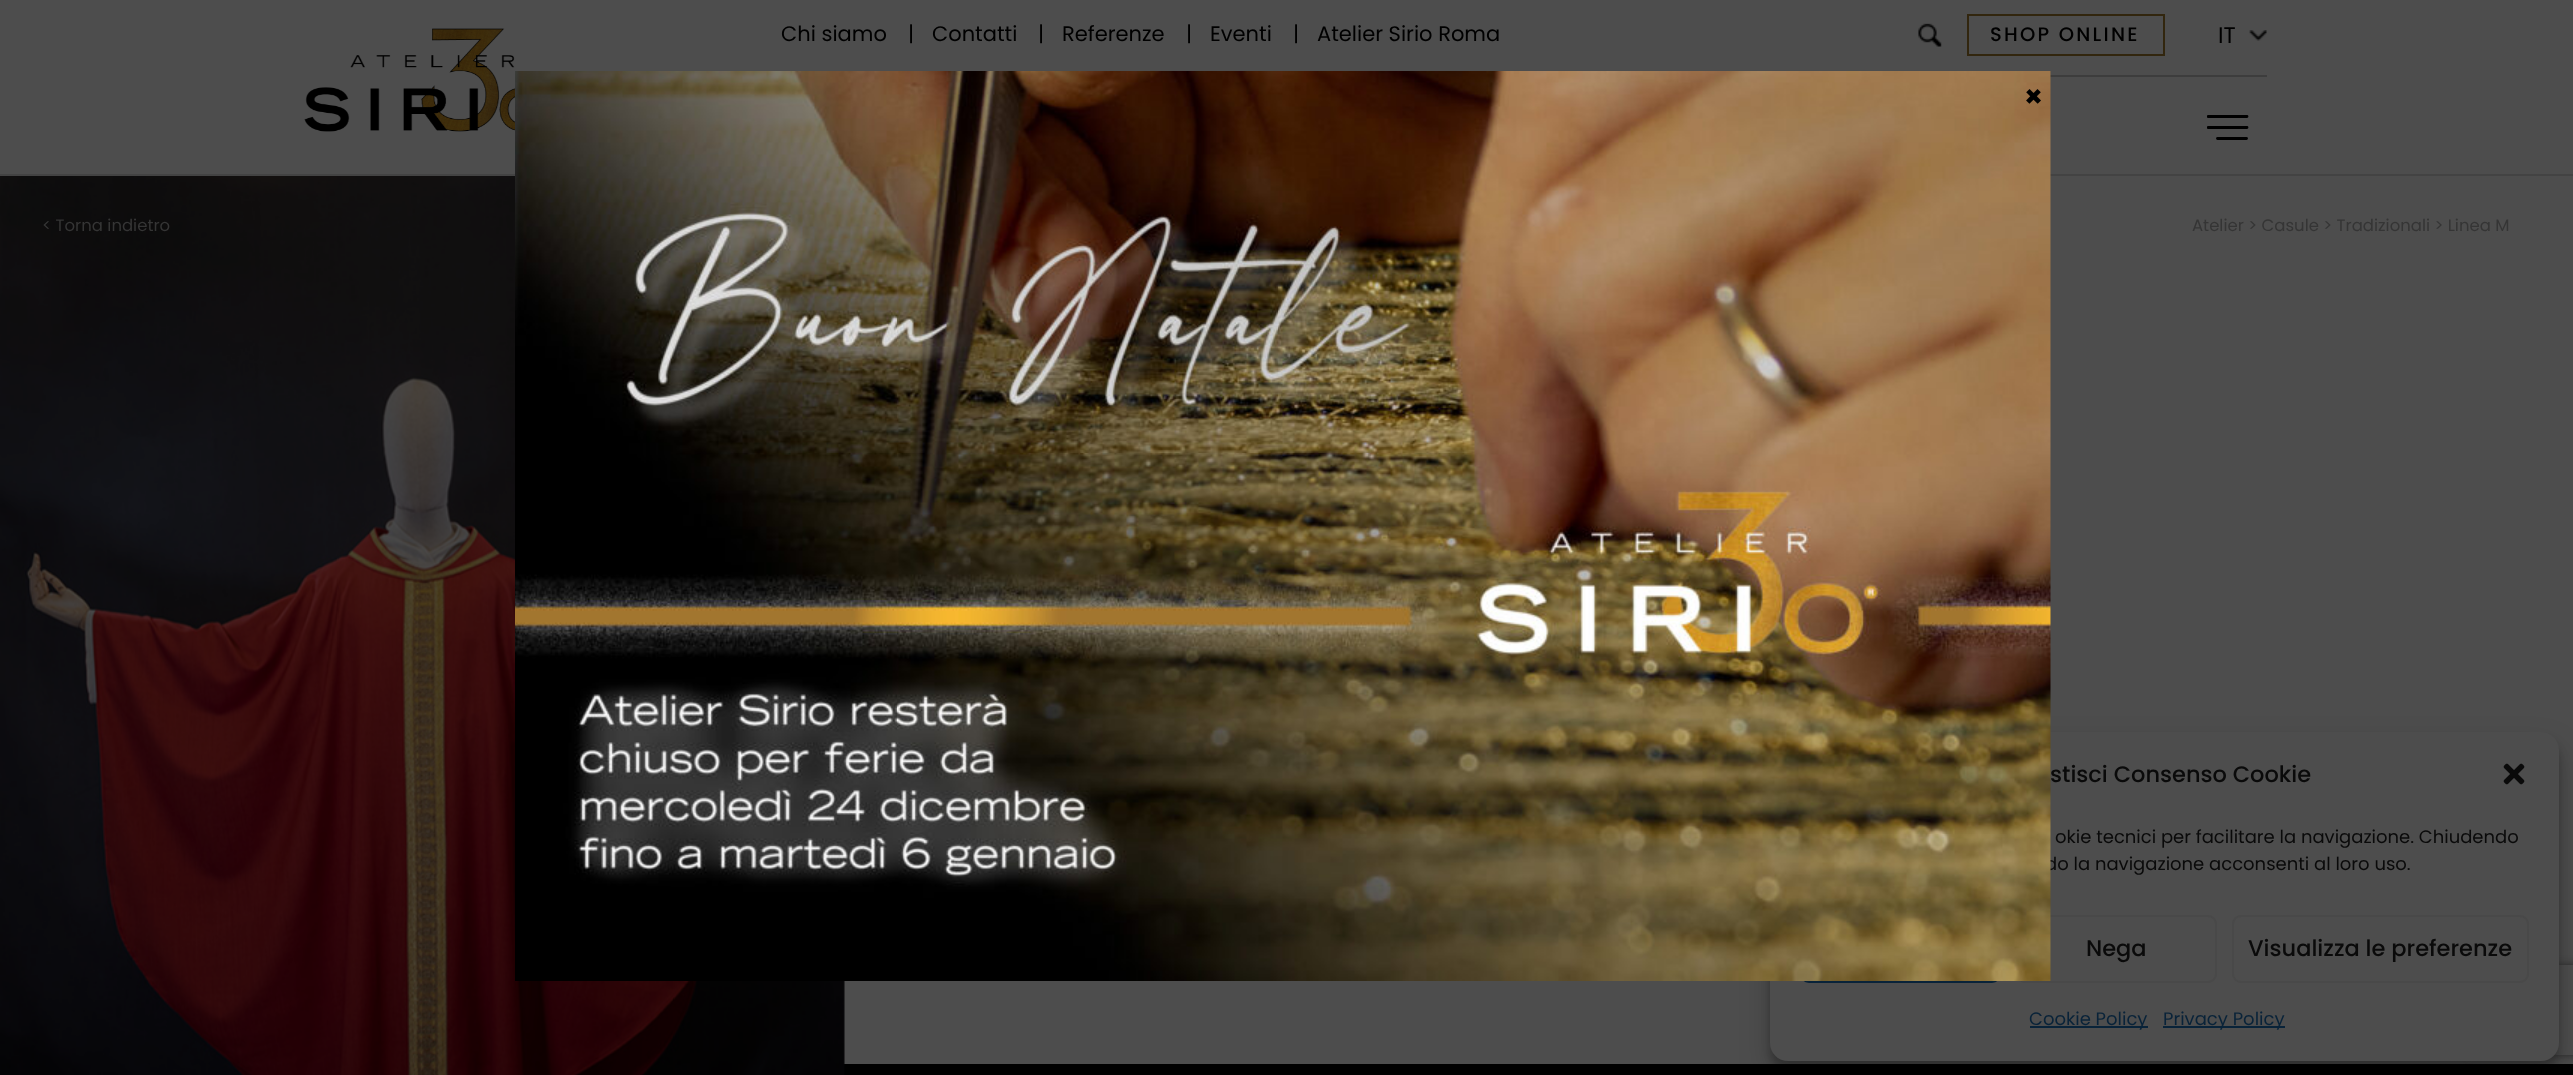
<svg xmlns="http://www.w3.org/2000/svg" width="2573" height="1075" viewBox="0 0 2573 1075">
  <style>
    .t1 { font: 21px Poppins; fill: #000; }
    .t2 { font: 500 19.5px Poppins; letter-spacing: 2.25px; fill: #000; }
    .t3 { font: 22.5px Poppins; fill: #000; }
    .t4 { font: 500 22.5px Poppins; fill: #0a0a0a; }
    .t5 { font: 18px Poppins; fill: #0a0a0a; }
    .t6 { font: bold 30px Poppins; fill: #000; }
    .t7 { font: 16.5px Poppins; fill: #353535; }
    .t8 { font: 18px Poppins; fill: #092339; }
  </style>
  <defs>
    <clipPath id="clip1"><rect x="2207" y="107" width="42" height="42"/></clipPath>
    <clipPath id="clip2"><path d="M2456 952H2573V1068H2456ZM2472 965H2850C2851.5 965 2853 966.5 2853 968V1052C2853 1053.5 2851.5 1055 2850 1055H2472C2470.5 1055 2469 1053.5 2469 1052V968C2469 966.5 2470.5 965 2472 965Z" clip-rule="evenodd"/></clipPath>
  </defs>
  <rect width="100%" height="100%" fill="#4d4d4d"/>
  <image x="304" y="28" width="211" height="104" href="images/1.png"/>
  <text x="781" y="41" class="t1">Chi siamo</text>
  <text x="908" y="41" class="t1">|</text>
  <text x="932" y="41" class="t1">Contatti</text>
  <text x="1038" y="41" class="t1">|</text>
  <text x="1062" y="41" class="t1">Referenze</text>
  <text x="1186" y="41" class="t1">|</text>
  <text x="1210" y="41" class="t1">Eventi</text>
  <text x="1293" y="41" class="t1">|</text>
  <text x="1317" y="41" class="t1">Atelier Sirio Roma</text>
  <image x="1918" y="23" width="24" height="24" href="images/2.png"/>
  <rect x="1968" y="15" width="196" height="40" fill="none" stroke="#32260e" stroke-width="2"/>
  <text x="1990" y="41" class="t2">SHOP ONLINE</text>
  <text x="2218" y="43" class="t3">IT</text>
  <image x="2249" y="30" width="18" height="11" href="images/3.png"/>
  <rect x="2050" y="75" width="217" height="2" fill="#3d3d3d"/>
  <g clip-path="url(#clip1)">
    <path d="M2247 116.5H2208M2247 127.5H2208" fill="none" stroke="#000" stroke-width="2.8" stroke-linecap="round"/>
  </g>
  <path d="M2246.5 138.5H2217.5" fill="none" stroke="#000" stroke-width="2.8" stroke-linecap="round"/>
  <rect x="0" y="174" width="2573" height="2" fill="#434343"/>
  <rect x="843" y="1064" width="1730" height="11" fill="#000"/>
  <image x="0" y="176" width="845" height="899" href="images/5.png"/>
  <rect x="1770" y="741" width="789" height="329" rx="18" fill="#0000003b" filter="blur(4.5px)"/>
  <rect x="1770" y="747" width="789" height="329" rx="18" fill="#00000030" filter="blur(15px)"/>
  <g clip-path="url(#clip2)">
    <rect x="2469" y="965" width="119" height="90" rx="3" fill="#262626" filter="blur(4px)"/>
  </g>
  <rect x="1770" y="732" width="789" height="329" rx="18" fill="#4d4d4d"/>
  <text x="2050" y="782" class="t4">stisci Consenso Cookie</text>
  <text x="2045" y="870" class="t5">do la navigazione acconsenti al loro uso.</text>
  <rect x="1801" y="916" width="199" height="66" rx="8" fill="none" stroke="#092339" stroke-width="2"/>
  <rect x="2017" y="916" width="199" height="66" rx="8" fill="none" stroke="#494949" stroke-width="2"/>
  <image x="515" y="71" width="1536" height="910" href="images/4.png"/>
  <text x="2024" y="107" class="t6">×</text>
  <text x="42" y="231" class="t7">&lt; Torna indietro</text>
  <text x="2192" y="231" class="t7">Atelier &gt; Casule &gt; Tradizionali &gt; Linea M</text>
  <image x="2503" y="763" width="22" height="22" href="images/6.png"/>
  <text x="2055" y="843" class="t5">okie tecnici per facilitare la navigazione. Chiudendo</text>
  <text x="2086" y="956" class="t4">Nega</text>
  <rect x="2233" y="916" width="295" height="66" rx="8" fill="none" stroke="#494949" stroke-width="2"/>
  <text x="2248" y="956" class="t4">Visualizza le preferenze</text>
  <rect x="2030" y="1026" width="118" height="2" fill="#092339"/>
  <text x="2029" y="1025" class="t8">Cookie Policy</text>
  <rect x="2163" y="1026" width="122" height="2" fill="#092339"/>
  <text x="2163" y="1025" class="t8">Privacy Policy</text>
</svg>
